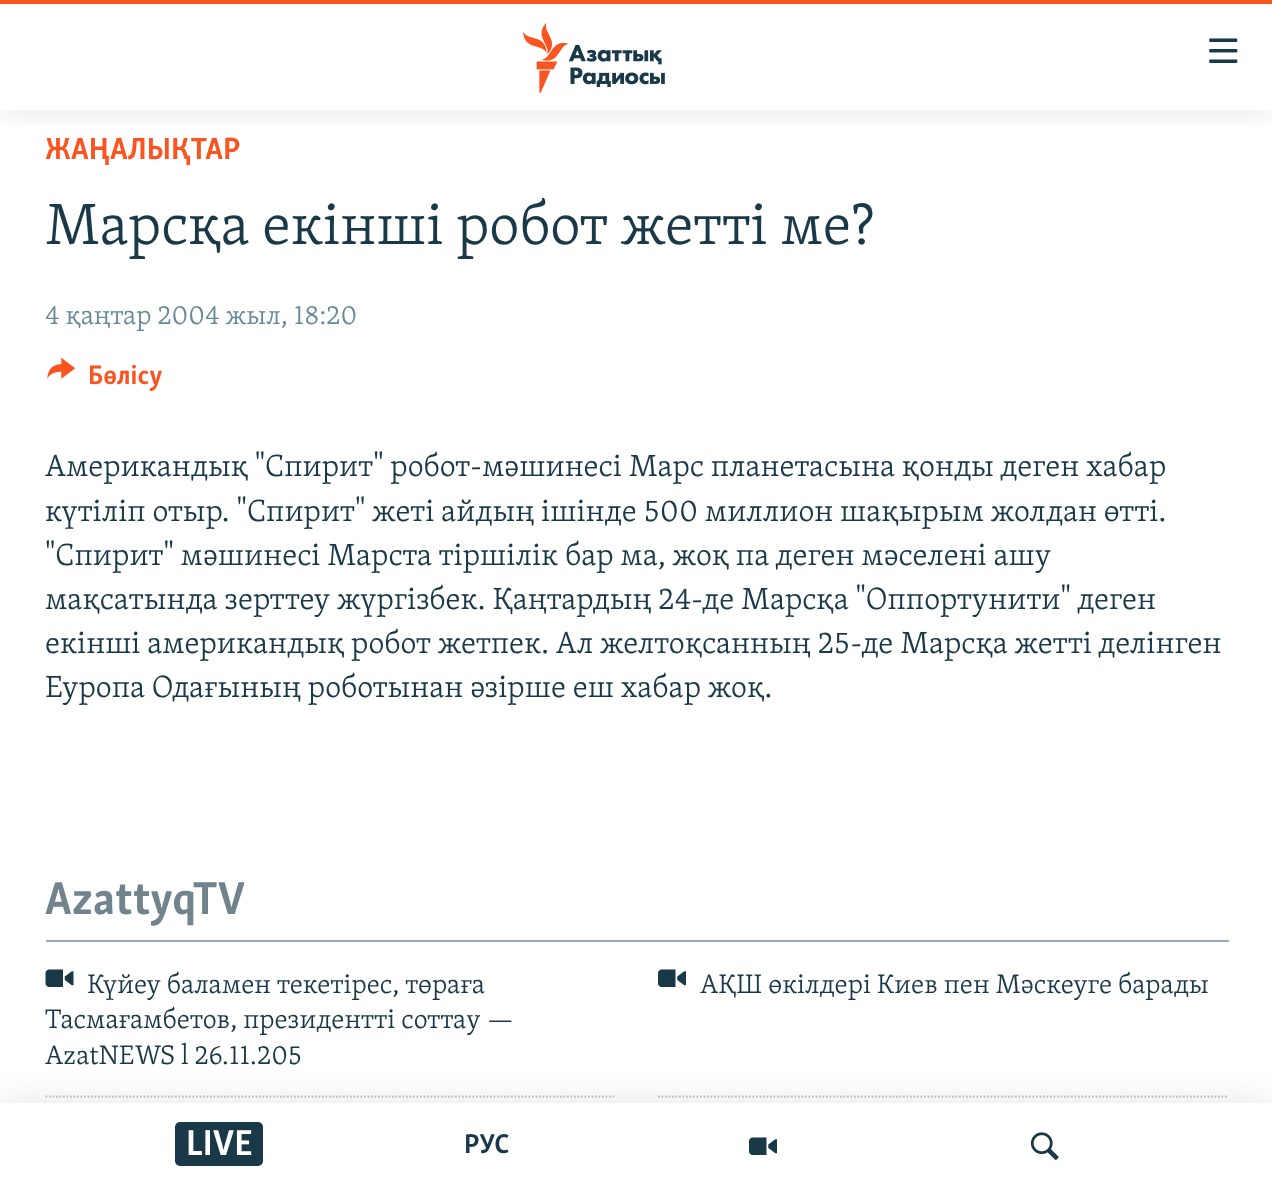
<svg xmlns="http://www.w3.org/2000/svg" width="1272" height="1190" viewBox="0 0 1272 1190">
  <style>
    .t1 { font: bold 31.5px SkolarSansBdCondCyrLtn; fill: #fa5420; }
    .t2 { font: 300 59.8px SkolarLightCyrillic; fill: #1a3948; }
    .t3 { font: 300 27.6px SkolarLightCyrillic; fill: #678a9b; }
    .t4 { font: bold 27.6px SkolarSansBdCondCyrLtn; fill: #fa5420; }
    .t5 { font: 300 31.5px SkolarLightCyrillic; fill: #1a3948; }
    .t6 { font: bold 47.25px SkolarSansBdCondCyrLtn; fill: #71838d; }
    .t7 { font: 300 27.6px SkolarLightCyrillic; fill: #1a3948; }
    .t8 { font: bold 37px SkolarSansBdCondCyrLtn; fill: #fff; }
    .t9 { font: bold 28px SkolarSansBdCondCyrLtn; fill: #1a3948; }
  </style>
  <defs>
    <clipPath id="clip1"><rect x="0" y="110" width="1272" height="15"/></clipPath>
  </defs>
  <rect width="100%" height="100%" fill="#fff"/>
  <text x="45" y="159" class="t1">ЖАҢАЛЫҚТАР</text>
  <text x="45" y="244" class="t2">Марсқа екінші робот жетті ме?</text>
  <text x="45" y="324" class="t3">4 қаңтар 2004 жыл, 18:20</text>
  <image x="47" y="357" width="29" height="22" href="images/1.png"/>
  <text x="88" y="384" class="t4">Бөлісу</text>
  <text x="45" y="476" class="t5">Американдық "Спирит" робот-мәшинесі Марс планетасына қонды деген хабар</text>
  <text x="45" y="521" class="t5">күтіліп отыр. "Спирит" жеті айдың ішінде 500 миллион шақырым жолдан өтті.</text>
  <text x="45" y="565" class="t5">"Спирит" мәшинесі Марста тіршілік бар ма, жоқ па деген мәселені ашу</text>
  <text x="45" y="609" class="t5">мақсатында зерттеу жүргізбек. Қаңтардың 24-де Марсқа "Оппортунити" деген</text>
  <text x="45" y="653" class="t5">екінші американдық робот жетпек. Ал желтоқсанның 25-де Марсқа жетті делінген</text>
  <text x="45" y="697" class="t5">Еуропа Одағының роботынан әзірше еш хабар жоқ.</text>
  <rect x="46" y="940" width="1183" height="2" fill="#95adb9"/>
  <text x="45" y="914" class="t6">AzattyqTV</text>
  <image x="45" y="969" width="29" height="18" href="images/2.png"/>
  <text x="87" y="993" class="t7">Күйеу баламен текетірес, төраға</text>
  <text x="45" y="1028" class="t7">Тасмағамбетов, президентті соттау —</text>
  <text x="45" y="1064" class="t7">AzatNEWS l 26.11.205</text>
  <image x="658" y="969" width="28" height="18" href="images/3.png"/>
  <text x="700" y="993" class="t7">АҚШ өкілдері Киев пен Мәскеуге барады</text>
  <path d="M45.5 1096.5H616" fill="none" stroke="#b4c5cd" stroke-width="1.8" stroke-dasharray="1.75 1.75"/>
  <path d="M658 1096.5H1228.5" fill="none" stroke="#b4c5cd" stroke-width="1.8" stroke-dasharray="1.75 1.75"/>
  <g clip-path="url(#clip1)">
    <rect x="0" y="0" width="1272" height="110" fill="#0000001a" filter="blur(17.5px)"/>
  </g>
  <rect x="0" y="0" width="1272" height="4" fill="#fa5420"/>
  <image x="523" y="23" width="142" height="70" href="images/4.png"/>
  <image x="1209" y="38" width="29" height="25" href="images/5.png"/>
  <rect x="0" y="1103" width="1272" height="87" fill="#0000001a" filter="blur(17.5px)"/>
  <rect x="0" y="1103" width="1272" height="87" fill="#fff"/>
  <rect x="175" y="1122" width="88" height="44" rx="5" fill="#1a3948"/>
  <text x="186" y="1155" class="t8">LIVE</text>
  <text x="464" y="1153" class="t9">РУС</text>
  <image x="749" y="1137" width="28" height="18" href="images/3.png"/>
  <image x="1030" y="1132" width="29" height="29" href="images/6.png"/>
</svg>
